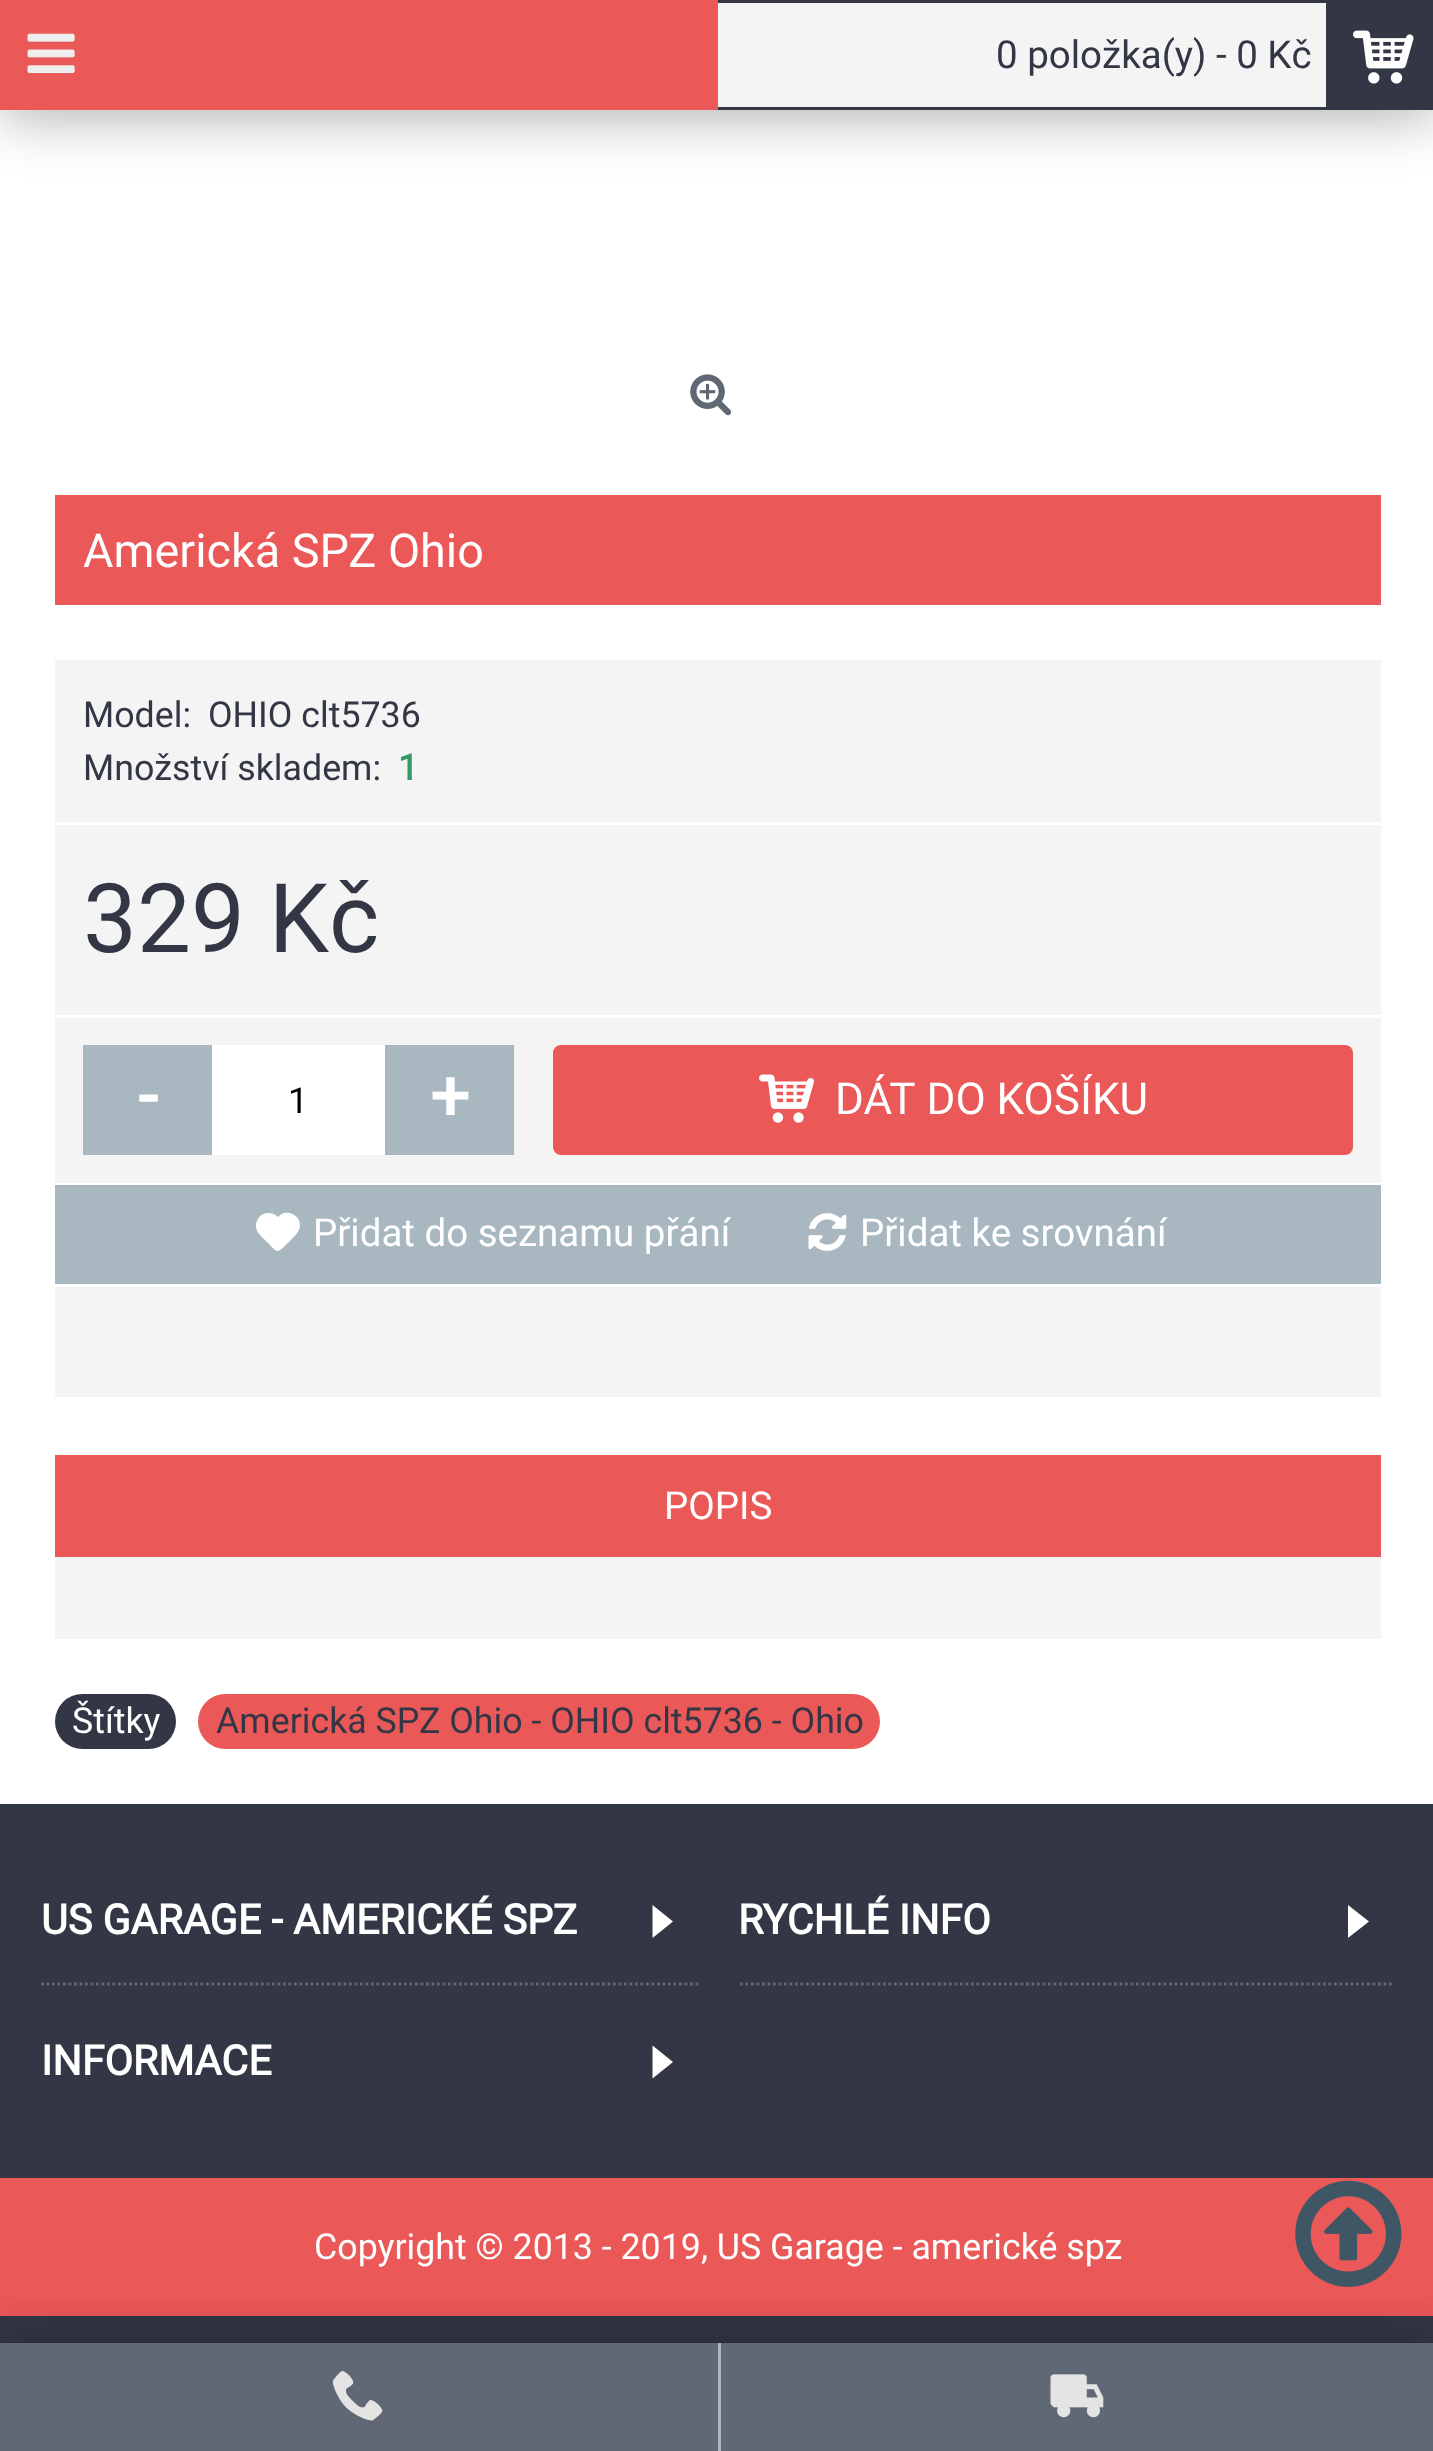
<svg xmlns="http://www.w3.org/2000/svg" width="1433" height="2451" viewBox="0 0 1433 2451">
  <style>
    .t1 { font: 38.5px Roboto; fill: #333745; }
    .t2 { font: 46.75px Roboto; fill: #fff; }
    .t3 { font: 35.75px Roboto; fill: #333745; }
    .t4 { font: bold 35.75px Roboto; fill: #339965; }
    .t5 { font: 96px Roboto; fill: #333745; }
    .t6 { font: bold 69px Roboto; fill: #fff; }
    .t7 { font: 35.75px Roboto; fill: #000; }
    .t8 { font: 44px Roboto; fill: #fff; }
    .t9 { font: 38.5px Roboto; fill: #fff; }
    .t10 { font: 35.75px Roboto; fill: #fff; }
    .t11 { font: bold 41.25px Roboto; fill: #fff; }
  </style>
  <defs>
    <clipPath id="clip1"><rect x="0" y="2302" width="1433" height="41"/></clipPath>
  </defs>
  <rect width="100%" height="100%" fill="#fff"/>
  <rect x="0" y="8" width="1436" height="110" fill="#0000004d" filter="blur(27.5px)"/>
  <rect x="0" y="0" width="718" height="110" fill="#eb5858"/>
  <image x="27" y="33" width="48" height="41" href="images/1.png"/>
  <rect x="718" y="3" width="608" height="104" fill="#f4f4f4"/>
  <rect x="718" y="0" width="715" height="3" fill="#333745"/>
  <rect x="718" y="107" width="715" height="3" fill="#333745"/>
  <text x="996" y="68" class="t1">0 položka(y) - 0 Kč</text>
  <rect x="1326" y="3" width="107" height="104" fill="#333745"/>
  <image x="1353" y="30" width="61" height="54" href="images/2.png"/>
  <rect x="0" y="2343" width="1433" height="108" fill="#5f6874"/>
  <rect x="0" y="1804" width="1433" height="539" fill="#333745"/>
  <rect x="0" y="2178" width="1433" height="138" fill="#eb5858"/>
  <g clip-path="url(#clip1)">
    <rect x="0" y="2343" width="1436" height="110" fill="#0000004d" filter="blur(27.5px)"/>
  </g>
  <rect x="718" y="2343" width="3" height="108" fill="#a9b8c0"/>
  <image x="332" y="2371" width="51" height="50" href="images/3.png"/>
  <image x="1050" y="2374" width="54" height="44" href="images/4.png"/>
  <image x="690" y="374" width="42" height="42" href="images/5.png"/>
  <rect x="55" y="495" width="1326" height="110" fill="#eb5858"/>
  <text x="83" y="567" class="t2">Americká SPZ Ohio</text>
  <rect x="55" y="660" width="1326" height="162" fill="#f4f4f4"/>
  <text x="83" y="727" class="t3">Model:</text>
  <text x="208" y="727" class="t3">OHIO clt5736</text>
  <text x="83" y="780" class="t3">Množství skladem:</text>
  <text x="398" y="780" class="t4">1</text>
  <rect x="55" y="825" width="1326" height="190" fill="#f4f4f4"/>
  <text x="83" y="952" class="t5">329 Kč</text>
  <rect x="55" y="1018" width="1326" height="165" fill="#f4f4f4"/>
  <rect x="83" y="1045" width="129" height="110" fill="#a9b8c0"/>
  <text x="138" y="1120" class="t6">-</text>
  <rect x="212" y="1045" width="173" height="110" fill="#fff"/>
  <text x="288" y="1113" class="t7">1</text>
  <rect x="385" y="1045" width="129" height="110" fill="#a9b8c0"/>
  <text x="430" y="1120" class="t6">+</text>
  <rect x="553" y="1045" width="800" height="110" rx="8" fill="#eb5858"/>
  <image x="759" y="1074" width="55" height="49" href="images/6.png"/>
  <text x="835" y="1114" class="t8">DÁT DO KOŠÍKU</text>
  <rect x="55" y="1185" width="1326" height="99" fill="#a9b8c0"/>
  <path d="M300 1225C300 1233 293 1237 289 1242C276 1254 279 1254 267 1242C260 1235 252 1229 258 1219C262 1212 272 1211 278 1217C285 1208 300 1214 300 1225Z" fill="#fff"/>
  <text x="313" y="1246" class="t9">Přidat do seznamu přání</text>
  <image x="808" y="1213" width="39" height="38" href="images/7.png"/>
  <text x="860" y="1246" class="t9">Přidat ke srovnání</text>
  <rect x="55" y="1287" width="1326" height="110" fill="#f4f4f4"/>
  <rect x="55" y="1455" width="1326" height="102" fill="#eb5858"/>
  <text x="664" y="1519" class="t9">POPIS</text>
  <rect x="55" y="1557" width="1326" height="82" fill="#f4f4f4"/>
  <rect x="55" y="1694" width="121" height="55" rx="27.5" fill="#333745"/>
  <text x="72" y="1733" class="t10">Štítky</text>
  <rect x="198" y="1694" width="682" height="55" rx="27.5" fill="#eb5858"/>
  <text x="216" y="1733" class="t3">Americká SPZ Ohio - OHIO clt5736 - Ohio</text>
  <path d="M41 1984H698.5" fill="none" stroke="#5f6874" stroke-width="2.8" stroke-dasharray="2.75 2.75"/>
  <text x="41" y="1934" class="t11">US GARAGE - AMERICKÉ SPZ</text>
  <path d="M652.5 1905V1938L673 1921.5Z" fill="#fff"/>
  <path d="M740 1984H1394" fill="none" stroke="#5f6874" stroke-width="2.8" stroke-dasharray="2.75 2.75"/>
  <text x="738" y="1934" class="t11">RYCHLÉ INFO</text>
  <path d="M1348 1905V1938L1369 1921.5Z" fill="#fff"/>
  <text x="41" y="2075" class="t11">INFORMACE</text>
  <path d="M652.5 2045.5V2078.5L673 2062Z" fill="#fff"/>
  <text x="314" y="2259" class="t10">Copyright © 2013 - 2019, US Garage - americké spz</text>
  <image x="1295" y="2180" width="107" height="107" href="images/8.png"/>
</svg>
